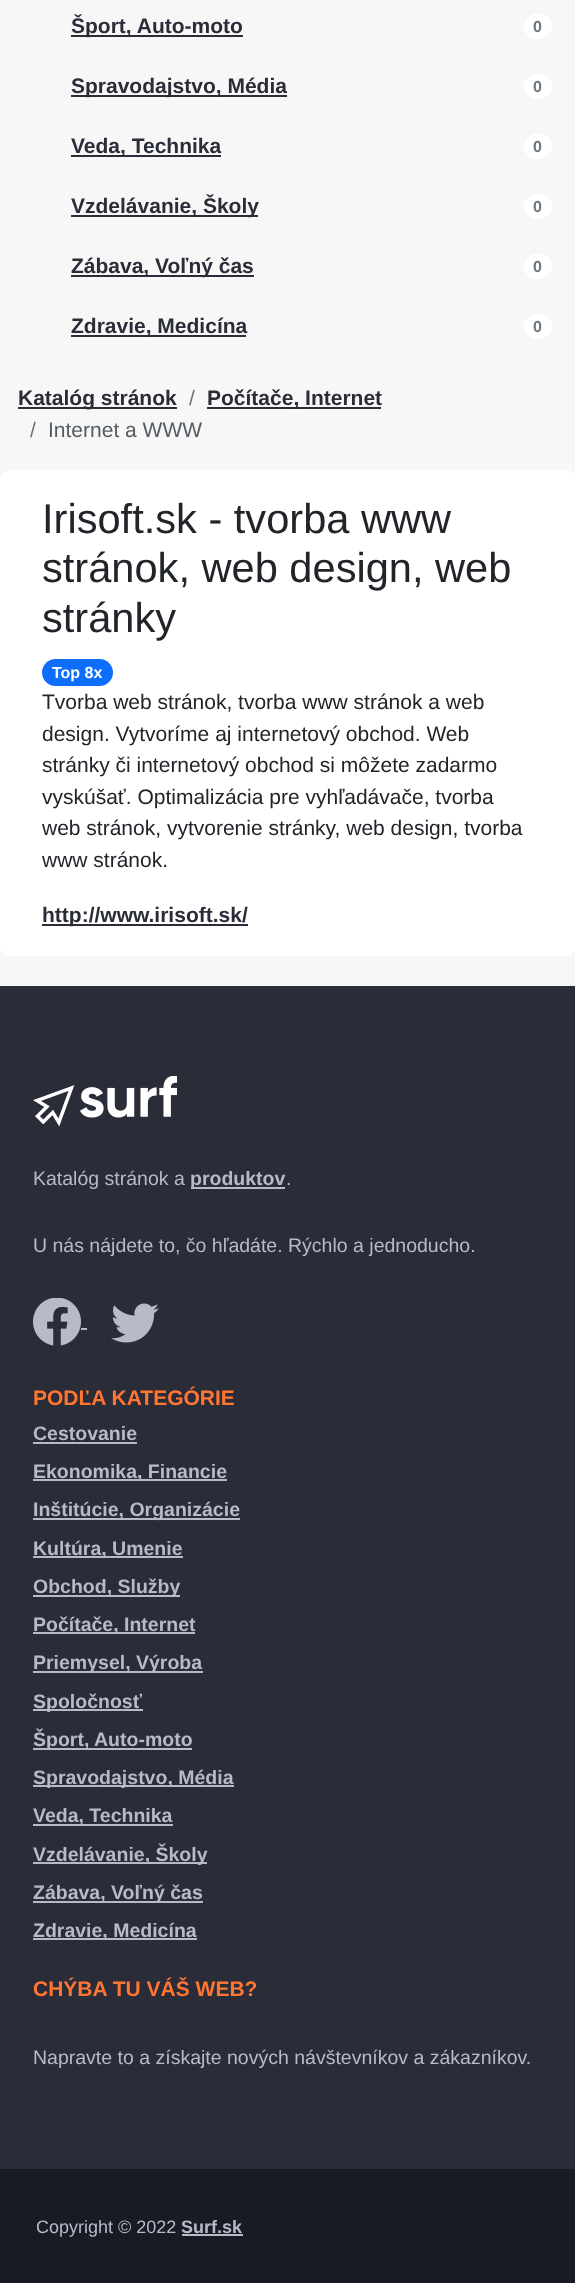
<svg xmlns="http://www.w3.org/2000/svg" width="575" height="2283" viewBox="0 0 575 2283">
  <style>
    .t1 { font: bold 21px Liberation Sans; fill: #2a2c38; }
    .t2 { font: bold 16px Liberation Sans; fill: #6c757d; }
    .t3 { font: 21px Liberation Sans; fill: #6c757d; }
    .t4 { font: 21px Liberation Sans; fill: #545b62; }
    .t5 { font: 41.6px Liberation Sans; fill: #212529; }
    .t6 { font: bold 16px Liberation Sans; fill: #fff; }
    .t7 { font: 21px Liberation Sans; fill: #212529; }
    .t8 { font: 19.5px Liberation Sans; fill: #b8baca; }
    .t9 { font: bold 19.5px Liberation Sans; fill: #b8baca; }
    .t10 { font: bold 21px Liberation Sans; fill: #ff7633; }
    .t11 { font: 18px Liberation Sans; fill: #b8baca; }
    .t12 { font: bold 18px Liberation Sans; fill: #b8baca; }
  </style>
  <rect width="100%" height="100%" fill="#f7f7f7"/>
  <rect x="71" y="35" width="172" height="2" fill="#2a2c38"/>
  <text x="71" y="33" class="t1">Šport, Auto-moto</text>
  <rect x="524" y="14" width="28" height="25" rx="12.5" fill="#fff"/>
  <text x="533" y="32" class="t2">0</text>
  <rect x="71" y="95" width="216" height="2" fill="#2a2c38"/>
  <text x="71" y="93" class="t1">Spravodajstvo, Média</text>
  <rect x="524" y="74" width="28" height="25" rx="12.5" fill="#fff"/>
  <text x="533" y="92" class="t2">0</text>
  <rect x="71" y="155" width="150" height="2" fill="#2a2c38"/>
  <text x="71" y="153" class="t1">Veda, Technika</text>
  <rect x="524" y="134" width="28" height="25" rx="12.5" fill="#fff"/>
  <text x="533" y="152" class="t2">0</text>
  <rect x="71" y="215" width="187" height="2" fill="#2a2c38"/>
  <text x="71" y="213" class="t1">Vzdelávanie, Školy</text>
  <rect x="524" y="194" width="28" height="25" rx="12.5" fill="#fff"/>
  <text x="533" y="212" class="t2">0</text>
  <rect x="71" y="275" width="183" height="2" fill="#2a2c38"/>
  <text x="71" y="273" class="t1">Zábava, Voľný čas</text>
  <rect x="524" y="254" width="28" height="25" rx="12.5" fill="#fff"/>
  <text x="533" y="272" class="t2">0</text>
  <rect x="71" y="335" width="175" height="2" fill="#2a2c38"/>
  <text x="71" y="333" class="t1">Zdravie, Medicína</text>
  <rect x="524" y="314" width="28" height="25" rx="12.5" fill="#fff"/>
  <text x="533" y="332" class="t2">0</text>
  <rect x="18" y="407" width="159" height="2" fill="#2a2c38"/>
  <text x="18" y="405" class="t1">Katalóg stránok</text>
  <text x="189" y="405" class="t3">/</text>
  <rect x="207" y="407" width="174" height="2" fill="#2a2c38"/>
  <text x="207" y="405" class="t1">Počítače, Internet</text>
  <text x="30" y="437" class="t3">/</text>
  <text x="48" y="437" class="t4">Internet a WWW</text>
  <rect x="0" y="470" width="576" height="486" rx="9" fill="#fff"/>
  <text x="42" y="533" class="t5">Irisoft.sk - tvorba www</text>
  <text x="42" y="582" class="t5">stránok, web design, web</text>
  <text x="42" y="632" class="t5">stránky</text>
  <rect x="42" y="659" width="71" height="27" rx="13.5" fill="#0d6efd"/>
  <text x="52" y="678" class="t6">Top 8x</text>
  <text x="42" y="709" class="t7">Tvorba web stránok, tvorba www stránok a web</text>
  <text x="42" y="741" class="t7">design. Vytvoríme aj internetový obchod. Web</text>
  <text x="42" y="772" class="t7">stránky či internetový obchod si môžete zadarmo</text>
  <text x="42" y="804" class="t7">vyskúšať. Optimalizácia pre vyhľadávače, tvorba</text>
  <text x="42" y="835" class="t7">web stránok, vytvorenie stránky, web design, tvorba</text>
  <text x="42" y="867" class="t7">www stránok.</text>
  <rect x="42" y="924" width="206" height="2" fill="#2a2c38"/>
  <text x="42" y="922" class="t1">http://www.irisoft.sk/</text>
  <rect x="0" y="986" width="575" height="1183" fill="#2a2c38"/>
  <image x="33" y="1076" width="144" height="51" href="images/1.png"/>
  <text x="33" y="1185" class="t8">Katalóg stránok a</text>
  <rect x="191" y="1187" width="94" height="2" fill="#b8baca"/>
  <text x="190" y="1185" class="t9">produktov</text>
  <text x="286" y="1185" class="t8">.</text>
  <text x="33" y="1252" class="t8">U nás nájdete to, čo hľadáte. Rýchlo a jednoducho.</text>
  <image x="33" y="1298" width="48" height="48" href="images/2.png"/>
  <rect x="81" y="1328" width="6" height="2" fill="#b8baca"/>
  <image x="111" y="1303" width="48" height="40" href="images/3.png"/>
  <text x="33" y="1405" class="t10">PODĽA KATEGÓRIE</text>
  <text x="33" y="1440" class="t9">Cestovanie</text>
  <rect x="33" y="1442" width="104" height="2" fill="#b8baca"/>
  <rect x="33" y="1479" width="194" height="2" fill="#b8baca"/>
  <text x="33" y="1478" class="t9">Ekonomika, Financie</text>
  <rect x="33" y="1518" width="207" height="2" fill="#b8baca"/>
  <text x="33" y="1516" class="t9">Inštitúcie, Organizácie</text>
  <rect x="33" y="1556" width="150" height="2" fill="#b8baca"/>
  <text x="33" y="1555" class="t9">Kultúra, Umenie</text>
  <rect x="33" y="1595" width="147" height="2" fill="#b8baca"/>
  <text x="33" y="1593" class="t9">Obchod, Služby</text>
  <rect x="33" y="1632" width="162" height="2" fill="#b8baca"/>
  <text x="33" y="1631" class="t9">Počítače, Internet</text>
  <rect x="33" y="1671" width="170" height="2" fill="#b8baca"/>
  <text x="33" y="1669" class="t9">Priemysel, Výroba</text>
  <rect x="33" y="1709" width="110" height="2" fill="#b8baca"/>
  <text x="33" y="1708" class="t9">Spoločnosť</text>
  <rect x="33" y="1748" width="159" height="2" fill="#b8baca"/>
  <text x="33" y="1746" class="t9">Šport, Auto-moto</text>
  <rect x="33" y="1785" width="201" height="2" fill="#b8baca"/>
  <text x="33" y="1784" class="t9">Spravodajstvo, Média</text>
  <rect x="33" y="1824" width="140" height="2" fill="#b8baca"/>
  <text x="33" y="1822" class="t9">Veda, Technika</text>
  <rect x="33" y="1862" width="174" height="2" fill="#b8baca"/>
  <text x="33" y="1861" class="t9">Vzdelávanie, Školy</text>
  <rect x="33" y="1901" width="170" height="2" fill="#b8baca"/>
  <text x="33" y="1899" class="t9">Zábava, Voľný čas</text>
  <rect x="33" y="1938" width="164" height="2" fill="#b8baca"/>
  <text x="33" y="1937" class="t9">Zdravie, Medicína</text>
  <text x="33" y="1996" class="t10">CHÝBA TU VÁŠ WEB?</text>
  <text x="33" y="2064" class="t8">Napravte to a získajte nových návštevníkov a zákazníkov.</text>
  <rect x="0" y="2169" width="575" height="114" fill="#181a24"/>
  <text x="36" y="2233" class="t11">Copyright © 2022</text>
  <text x="181" y="2233" class="t12">Surf.sk</text>
  <rect x="182" y="2234" width="61" height="2" fill="#b8baca"/>
</svg>
